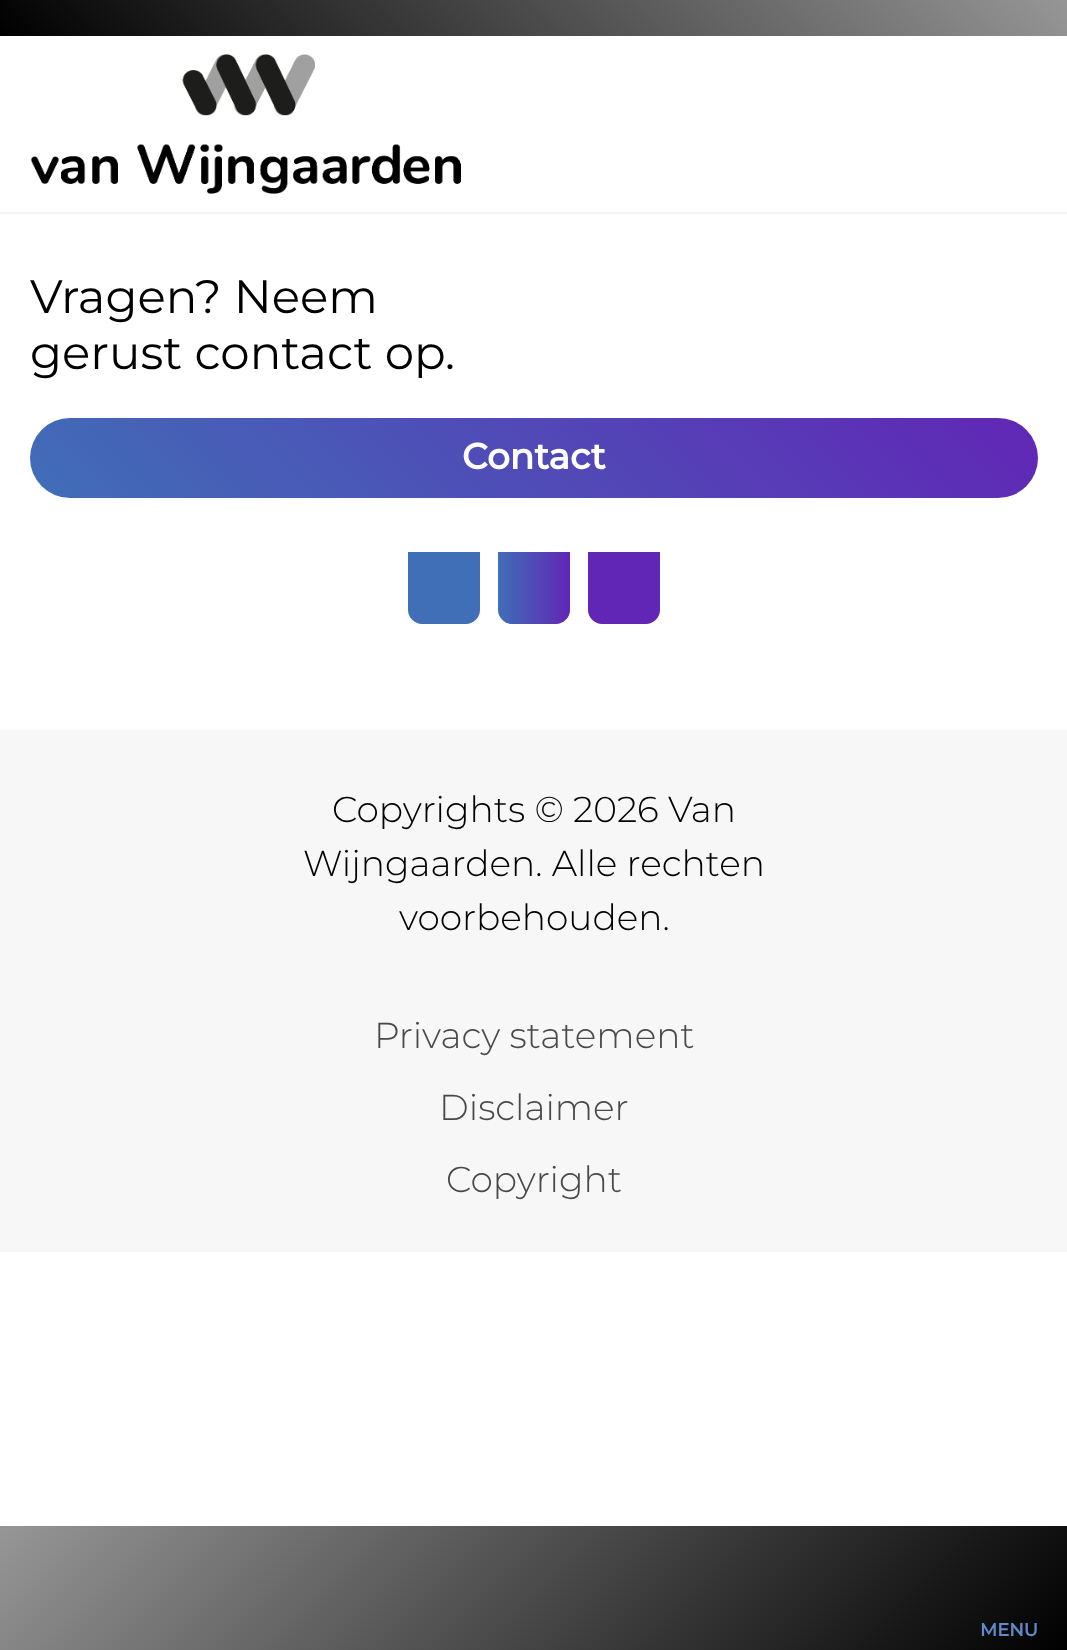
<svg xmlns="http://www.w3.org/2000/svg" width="1067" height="1650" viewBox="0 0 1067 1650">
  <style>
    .t1 { font: 46.75px Montserrat; fill: #000; }
    .t2 { font: bold 36px Montserrat; fill: #fff; }
    .t3 { font: 300 36px Montserrat; fill: #000; }
    .t4 { font: 300 36px Montserrat; fill: #494949; }
    .t5 { font: bold 18px Montserrat; fill: #6289c8; }
  </style>
  <defs>
    <linearGradient id="g1" gradientUnits="userSpaceOnUse" x1="258" y1="294" x2="810" y2="-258"><stop offset="0" stop-color="#000"/><stop offset="1" stop-color="#969696"/></linearGradient>
    <linearGradient id="g2" gradientUnits="userSpaceOnUse" x1="262" y1="730" x2="806" y2="186"><stop offset="0" stop-color="#406eb7"/><stop offset="1" stop-color="#6126b6"/></linearGradient>
    <linearGradient id="g3" gradientUnits="userSpaceOnUse" x1="498" y1="588" x2="570" y2="588"><stop offset="0" stop-color="#406eb7"/><stop offset="1" stop-color="#6126b6"/></linearGradient>
    <linearGradient id="g4" gradientUnits="userSpaceOnUse" x1="832" y1="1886" x2="236" y2="1290"><stop offset="0" stop-color="#000"/><stop offset="1" stop-color="#969696"/></linearGradient>
  </defs>
  <rect width="100%" height="100%" fill="#fff"/>
  <rect x="0" y="0" width="1067" height="36" fill="url(#g1)"/>
  <rect x="0" y="212" width="1067" height="2" fill="#f5f5f5"/>
  <image x="30" y="54" width="431" height="140" href="images/1.png"/>
  <text x="30" y="313" class="t1">Vragen? Neem</text>
  <text x="30" y="369" class="t1">gerust contact op.</text>
  <rect x="30" y="418" width="1008" height="80" rx="40" fill="url(#g2)"/>
  <text x="462" y="469" class="t2">Contact</text>
  <path d="M408 552H480V610C480 617.5 473.5 624 466 624H422C414.5 624 408 617.5 408 610Z" fill="#406eb7"/>
  <path d="M498 552H570V610C570 617.5 563.5 624 556 624H512C504.5 624 498 617.5 498 610Z" fill="url(#g3)"/>
  <path d="M588 552H660V610C660 617.5 653.5 624 646 624H602C594.5 624 588 617.5 588 610Z" fill="#6126b6"/>
  <rect x="0" y="730" width="1067" height="522" fill="#f7f7f7"/>
  <text x="332" y="822" class="t3">Copyrights © 2026 Van</text>
  <text x="303" y="876" class="t3">Wijngaarden. Alle rechten</text>
  <text x="399" y="930" class="t3">voorbehouden.</text>
  <text x="374" y="1048" class="t4">Privacy statement</text>
  <text x="439" y="1120" class="t4">Disclaimer</text>
  <text x="446" y="1192" class="t4">Copyright</text>
  <rect x="0" y="1526" width="1067" height="124" fill="url(#g4)"/>
  <text x="980" y="1636" class="t5">MENU</text>
</svg>
